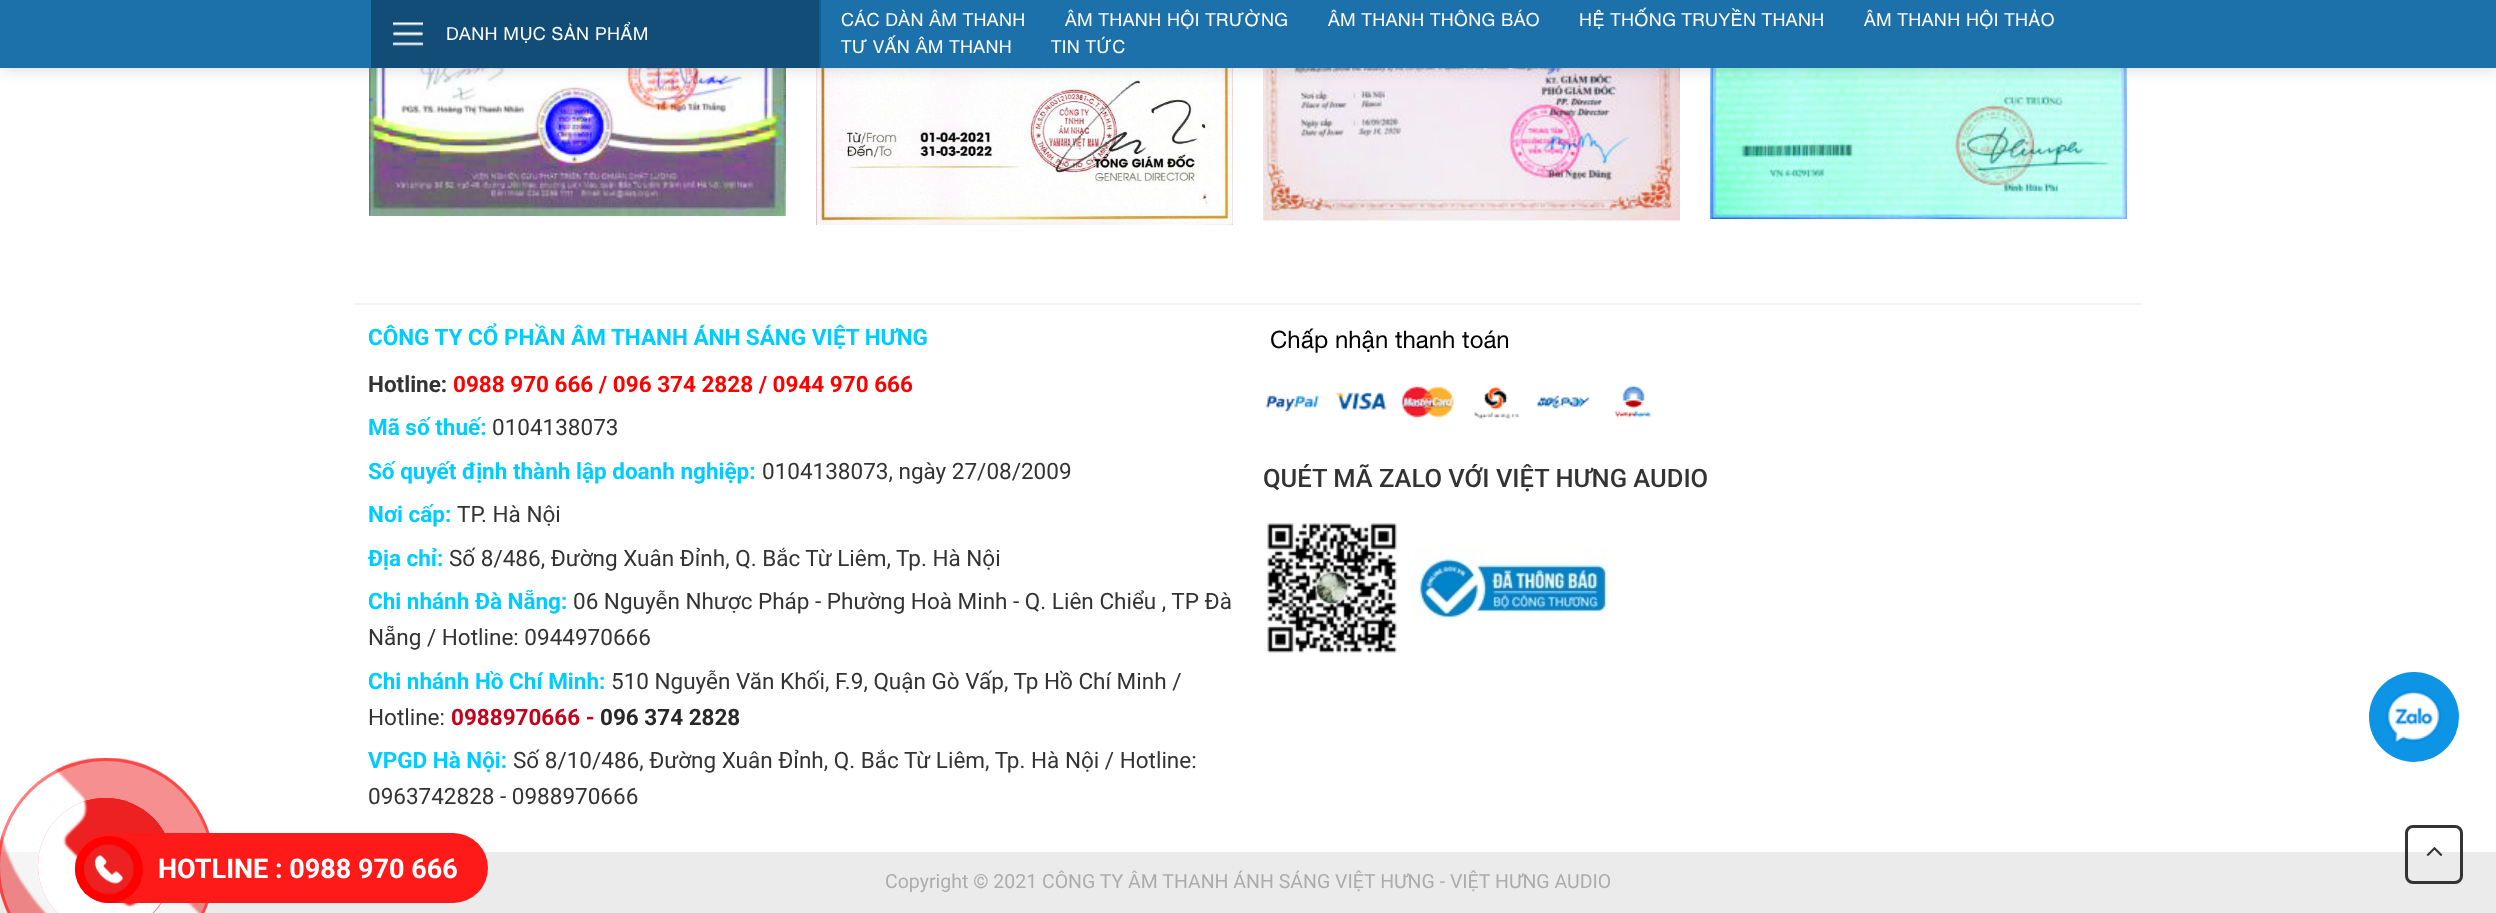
<svg xmlns="http://www.w3.org/2000/svg" width="2496" height="913" viewBox="0 0 2496 913">
  <style>
    .t1 { font: 18px Helvetica Neue; letter-spacing: 0.4px; fill: #fff; }
    .t2 { font: bold 27px Roboto; fill: #fff; }
    .t3 { font: bold 22.5px Roboto; fill: #0cf; }
    .t4 { font: bold 22.5px Roboto; fill: #333; }
    .t5 { font: bold 22.5px Roboto; fill: #f00; }
    .t6 { font: 22.5px Roboto; fill: #333; }
    .t7 { font: bold 22.5px Roboto; fill: #c4011a; }
    .t8 { font: bold 22.5px Roboto; fill: #282828; }
    .t9 { font: 24px Helvetica Neue; fill: #000; }
    .t10 { font: 500 25.5px Roboto; fill: #333; }
    .t11 { font: 19.5px Roboto; fill: #acacac; }
  </style>
  <rect width="100%" height="100%" fill="#fff"/>
  <image x="369" y="68" width="417" height="148" href="images/6.png"/>
  <image x="816" y="68" width="417" height="157" href="images/7.png"/>
  <image x="1263" y="68" width="417" height="153" href="images/8.png"/>
  <image x="1710" y="68" width="417" height="151" href="images/9.png"/>
  <rect x="2" y="2" width="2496" height="67" fill="#00000026" filter="blur(7.5px)"/>
  <rect x="0" y="0" width="2496" height="68" fill="#1d71ab"/>
  <text x="841" y="26" class="t1">CÁC DÀN ÂM THANH</text>
  <text x="1065" y="26" class="t1">ÂM THANH HỘI TRƯỜNG</text>
  <text x="1328" y="26" class="t1">ÂM THANH THÔNG BÁO</text>
  <text x="1579" y="26" class="t1">HỆ THỐNG TRUYỀN THANH</text>
  <text x="1864" y="26" class="t1">ÂM THANH HỘI THẢO</text>
  <rect x="371" y="0" width="448" height="68" fill="#114d76"/>
  <rect x="819" y="0" width="2" height="68" fill="#0c619b"/>
  <image x="393" y="22" width="30" height="24" href="images/1.png"/>
  <text x="446" y="40" class="t1">DANH MỤC SẢN PHẨM</text>
  <text x="841" y="53" class="t1">TƯ VẤN ÂM THANH</text>
  <text x="1051" y="53" class="t1">TIN TỨC</text>
  <circle cx="2414" cy="717" r="45" fill="#0d94e4"/>
  <image x="2386" y="690" width="55" height="54" href="images/2.png"/>
  <rect x="0" y="852" width="2496" height="61" fill="#ebebeb"/>
  <image x="0" y="758" width="210" height="155" href="images/3.png"/>
  <rect x="-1.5" y="759.5" width="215" height="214" rx="107" fill="none" stroke="#ff000080" stroke-width="3"/>
  <circle cx="105.5" cy="865.5" r="67.5" fill="#f00"/>
  <image x="38" y="798" width="127" height="115" href="images/4.png"/>
  <rect x="75" y="833" width="413" height="70" rx="35" fill="#ff1a1a"/>
  <rect x="75" y="836" width="68" height="67" rx="33.5" fill="#f00"/>
  <image x="84" y="844" width="50" height="51" href="images/5.png"/>
  <text x="158" y="878" class="t2">HOTLINE : 0988 970 666</text>
  <rect x="354" y="303" width="1788" height="2" fill="#f4f4f4"/>
  <text x="368" y="345" class="t3">CÔNG TY CỔ PHẦN ÂM THANH ÁNH SÁNG VIỆT HƯNG</text>
  <text x="368" y="392" class="t4">Hotline:</text>
  <text x="453" y="392" class="t5">0988 970 666 / 096 374 2828 / 0944 970 666</text>
  <text x="368" y="435" class="t3">Mã số thuế:</text>
  <text x="492" y="435" class="t6">0104138073</text>
  <text x="368" y="479" class="t3">Số quyết định thành lập doanh nghiệp:</text>
  <text x="762" y="479" class="t6">0104138073, ngày 27/08/2009</text>
  <text x="368" y="522" class="t3">Nơi cấp:</text>
  <text x="457" y="522" class="t6">TP. Hà Nội</text>
  <text x="368" y="566" class="t3">Địa chỉ:</text>
  <text x="449" y="566" class="t6">Số 8/486, Đường Xuân Đỉnh, Q. Bắc Từ Liêm, Tp. Hà Nội</text>
  <text x="368" y="609" class="t3">Chi nhánh Đà Nẵng:</text>
  <text x="573" y="609" class="t6">06 Nguyễn Nhược Pháp - Phường Hoà Minh - Q. Liên Chiểu , TP Đà</text>
  <text x="368" y="645" class="t6">Nẵng / Hotline: 0944970666</text>
  <text x="368" y="689" class="t3">Chi nhánh Hồ Chí Minh:</text>
  <text x="611" y="689" class="t6">510 Nguyễn Văn Khối, F.9, Quận Gò Vấp, Tp Hồ Chí Minh /</text>
  <text x="368" y="725" class="t6">Hotline:</text>
  <text x="451" y="725" class="t7">0988970666 -</text>
  <text x="600" y="725" class="t8">096 374 2828</text>
  <text x="368" y="768" class="t3">VPGD Hà Nội:</text>
  <text x="513" y="768" class="t6">Số 8/10/486, Đường Xuân Đỉnh, Q. Bắc Từ Liêm, Tp. Hà Nội / Hotline:</text>
  <text x="368" y="804" class="t6">0963742828 - 0988970666</text>
  <text x="1270" y="348" class="t9">Chấp nhận thanh toán</text>
  <image x="1265" y="385" width="387" height="34" href="images/10.png"/>
  <text x="1263" y="487" class="t10">QUÉT MÃ ZALO VỚI VIỆT HƯNG AUDIO</text>
  <image x="1265" y="521" width="133" height="132" href="images/11.png"/>
  <image x="1414" y="547" width="194" height="72" href="images/12.png"/>
  <text x="885" y="888" class="t11">Copyright © 2021 CÔNG TY ÂM THANH ÁNH SÁNG VIỆT HƯNG - VIỆT HƯNG AUDIO</text>
  <rect x="2406.5" y="826.5" width="55" height="56" rx="6.5" fill="none" stroke="#333" stroke-width="3"/>
  <image x="2426" y="847" width="17" height="9" href="images/13.png"/>
</svg>
